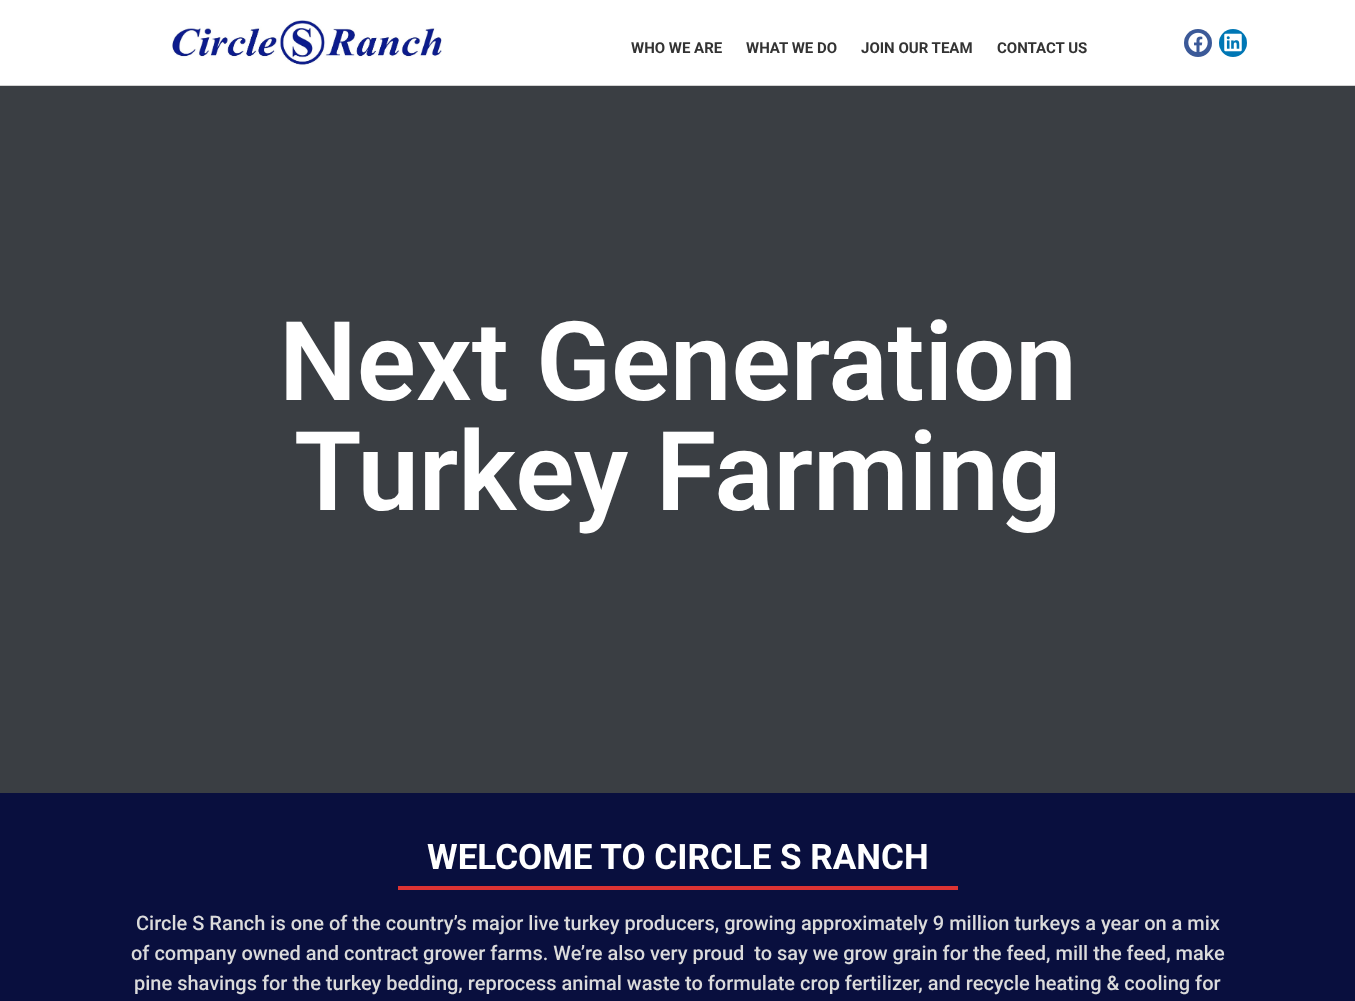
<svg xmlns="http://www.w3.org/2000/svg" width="1355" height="1001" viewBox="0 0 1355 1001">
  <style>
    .t1 { font: bold 15px Roboto; fill: #333; }
    .t2 { font: 600 110px Roboto; fill: #fff; }
    .t3 { font: bold 35px Roboto; fill: #fff; }
    .t4 { font: 500 20px Roboto; fill: #dbdbdb; }
  </style>
  <rect width="100%" height="100%" fill="#3a3e43"/>
  <rect x="0" y="0" width="1355" height="85" fill="#fff"/>
  <rect x="0" y="85" width="1355" height="1" fill="#d3d3d3"/>
  <image x="172" y="20" width="270" height="46" href="images/1.png"/>
  <text x="631" y="53" class="t1">WHO WE ARE</text>
  <text x="746" y="53" class="t1">WHAT WE DO</text>
  <text x="861" y="53" class="t1">JOIN OUR TEAM</text>
  <text x="997" y="53" class="t1">CONTACT US</text>
  <circle cx="1198" cy="43" r="14" fill="#3b5998"/>
  <image x="1188" y="32" width="20" height="20" href="images/2.png"/>
  <circle cx="1233" cy="43" r="14" fill="#0077b5"/>
  <image x="1224" y="33" width="18" height="19" href="images/3.png"/>
  <text x="279" y="400" class="t2">Next Generation</text>
  <text x="294" y="510" class="t2">Turkey Farming</text>
  <rect x="0" y="793" width="1355" height="208" fill="#090f3e"/>
  <text x="427" y="869" class="t3">WELCOME TO CIRCLE S RANCH</text>
  <rect x="398" y="886" width="560" height="4" fill="#d33"/>
  <text x="136" y="930" class="t4">Circle S Ranch is one of the country’s major live turkey producers, growing approximately 9 million turkeys a year on a mix</text>
  <text x="131" y="960" class="t4" xml:space="preserve">of company owned and contract grower farms. We’re also very proud  to say we grow grain for the feed, mill the feed, make</text>
  <text x="134" y="990" class="t4">pine shavings for the turkey bedding, reprocess animal waste to formulate crop fertilizer, and recycle heating &amp; cooling for</text>
</svg>
